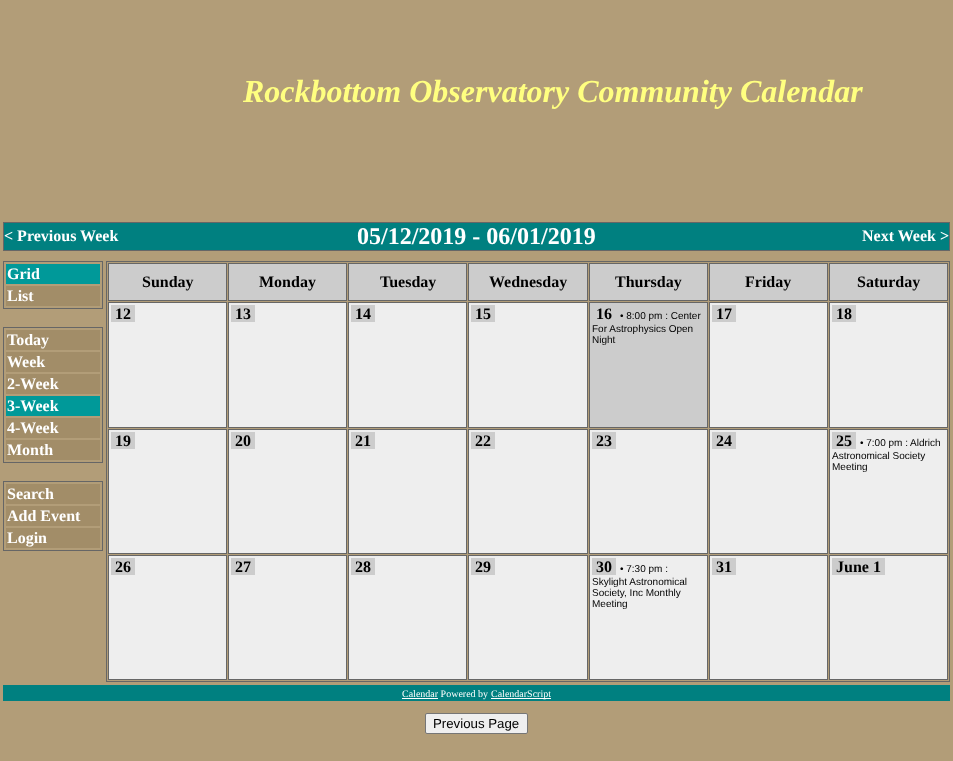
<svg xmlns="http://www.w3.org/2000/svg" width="953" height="761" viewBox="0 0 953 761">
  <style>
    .t1 { font: italic bold 32px Liberation Serif; fill: #ffff80; }
    .t2 { font: bold 16px Liberation Serif; fill: #fff; }
    .t3 { font: bold 24px Liberation Serif; fill: #fff; }
    .t4 { font: bold 16px Liberation Serif; fill: #000; }
    .t5 { font: 10px Liberation Sans; fill: #000; }
    .t6 { font: 10px Liberation Serif; fill: #fff; }
    .t7 { font: 13.25px Liberation Sans; fill: #000; }
  </style>
  <rect width="100%" height="100%" fill="#b29d78"/>
  <text x="243" y="102" class="t1">Rockbottom Observatory Community Calendar</text>
  <rect x="3.5" y="222.5" width="946" height="28" fill="none" stroke="#666"/>
  <rect x="4" y="223" width="945" height="27" fill="#008080"/>
  <text x="4" y="241" class="t2">&lt; Previous Week</text>
  <text x="357" y="244" class="t3">05/12/2019 - 06/01/2019</text>
  <text x="862" y="241" class="t2">Next Week &gt;</text>
  <rect x="3.5" y="261.5" width="99" height="47" fill="none" stroke="#666"/>
  <rect x="6" y="264" width="94" height="20" fill="#099"/>
  <text x="7" y="279" class="t2">Grid</text>
  <rect x="6" y="286" width="94" height="20" fill="#a28d68"/>
  <text x="7" y="301" class="t2">List</text>
  <rect x="3.5" y="327.5" width="99" height="135" fill="none" stroke="#666"/>
  <rect x="6" y="330" width="94" height="20" fill="#a28d68"/>
  <text x="7" y="345" class="t2">Today</text>
  <rect x="6" y="352" width="94" height="20" fill="#a28d68"/>
  <text x="7" y="367" class="t2">Week</text>
  <rect x="6" y="374" width="94" height="20" fill="#a28d68"/>
  <text x="7" y="389" class="t2">2-Week</text>
  <rect x="6" y="396" width="94" height="20" fill="#099"/>
  <text x="7" y="411" class="t2">3-Week</text>
  <rect x="6" y="418" width="94" height="20" fill="#a28d68"/>
  <text x="7" y="433" class="t2">4-Week</text>
  <rect x="6" y="440" width="94" height="20" fill="#a28d68"/>
  <text x="7" y="455" class="t2">Month</text>
  <rect x="3.5" y="481.5" width="99" height="69" fill="none" stroke="#666"/>
  <rect x="6" y="484" width="94" height="20" fill="#a28d68"/>
  <text x="7" y="499" class="t2">Search</text>
  <rect x="6" y="506" width="94" height="20" fill="#a28d68"/>
  <text x="7" y="521" class="t2">Add Event</text>
  <rect x="6" y="528" width="94" height="20" fill="#a28d68"/>
  <text x="7" y="543" class="t2">Login</text>
  <rect x="106.5" y="261.5" width="843" height="420" fill="none" stroke="#666"/>
  <rect x="108.5" y="263.5" width="118" height="37" fill="#ccc" stroke="#666"/>
  <text x="142" y="287" class="t4">Sunday</text>
  <rect x="228.5" y="263.5" width="118" height="37" fill="#ccc" stroke="#666"/>
  <text x="259" y="287" class="t4">Monday</text>
  <rect x="348.5" y="263.5" width="118" height="37" fill="#ccc" stroke="#666"/>
  <text x="380" y="287" class="t4">Tuesday</text>
  <rect x="468.5" y="263.5" width="119" height="37" fill="#ccc" stroke="#666"/>
  <text x="489" y="287" class="t4">Wednesday</text>
  <rect x="589.5" y="263.5" width="118" height="37" fill="#ccc" stroke="#666"/>
  <text x="615" y="287" class="t4">Thursday</text>
  <rect x="709.5" y="263.5" width="118" height="37" fill="#ccc" stroke="#666"/>
  <text x="745" y="287" class="t4">Friday</text>
  <rect x="829.5" y="263.5" width="118" height="37" fill="#ccc" stroke="#666"/>
  <text x="857" y="287" class="t4">Saturday</text>
  <rect x="108.5" y="302.5" width="118" height="125" fill="#eee" stroke="#666"/>
  <rect x="111" y="305" width="24" height="17" fill="#ccc"/>
  <text x="115" y="319" class="t4">12</text>
  <rect x="228.5" y="302.5" width="118" height="125" fill="#eee" stroke="#666"/>
  <rect x="231" y="305" width="24" height="17" fill="#ccc"/>
  <text x="235" y="319" class="t4">13</text>
  <rect x="348.5" y="302.5" width="118" height="125" fill="#eee" stroke="#666"/>
  <rect x="351" y="305" width="24" height="17" fill="#ccc"/>
  <text x="355" y="319" class="t4">14</text>
  <rect x="468.5" y="302.5" width="119" height="125" fill="#eee" stroke="#666"/>
  <rect x="471" y="305" width="24" height="17" fill="#ccc"/>
  <text x="475" y="319" class="t4">15</text>
  <rect x="589.5" y="302.5" width="118" height="125" fill="#ccc" stroke="#666"/>
  <text x="596" y="319" class="t4">16</text>
  <text x="620" y="319" class="t5">• 8:00 pm : Center</text>
  <text x="592" y="332" class="t5">For Astrophysics Open</text>
  <text x="592" y="343" class="t5">Night</text>
  <rect x="709.5" y="302.5" width="118" height="125" fill="#eee" stroke="#666"/>
  <rect x="712" y="305" width="24" height="17" fill="#ccc"/>
  <text x="716" y="319" class="t4">17</text>
  <rect x="829.5" y="302.5" width="118" height="125" fill="#eee" stroke="#666"/>
  <rect x="832" y="305" width="24" height="17" fill="#ccc"/>
  <text x="836" y="319" class="t4">18</text>
  <rect x="108.5" y="429.5" width="118" height="124" fill="#eee" stroke="#666"/>
  <rect x="111" y="432" width="24" height="17" fill="#ccc"/>
  <text x="115" y="446" class="t4">19</text>
  <rect x="228.5" y="429.5" width="118" height="124" fill="#eee" stroke="#666"/>
  <rect x="231" y="432" width="24" height="17" fill="#ccc"/>
  <text x="235" y="446" class="t4">20</text>
  <rect x="348.5" y="429.5" width="118" height="124" fill="#eee" stroke="#666"/>
  <rect x="351" y="432" width="24" height="17" fill="#ccc"/>
  <text x="355" y="446" class="t4">21</text>
  <rect x="468.5" y="429.5" width="119" height="124" fill="#eee" stroke="#666"/>
  <rect x="471" y="432" width="24" height="17" fill="#ccc"/>
  <text x="475" y="446" class="t4">22</text>
  <rect x="589.5" y="429.5" width="118" height="124" fill="#eee" stroke="#666"/>
  <rect x="592" y="432" width="24" height="17" fill="#ccc"/>
  <text x="596" y="446" class="t4">23</text>
  <rect x="709.5" y="429.5" width="118" height="124" fill="#eee" stroke="#666"/>
  <rect x="712" y="432" width="24" height="17" fill="#ccc"/>
  <text x="716" y="446" class="t4">24</text>
  <rect x="829.5" y="429.5" width="118" height="124" fill="#eee" stroke="#666"/>
  <rect x="832" y="432" width="24" height="17" fill="#ccc"/>
  <text x="836" y="446" class="t4">25</text>
  <text x="860" y="446" class="t5">• 7:00 pm :</text>
  <text x="910" y="446" class="t5">Aldrich</text>
  <text x="832" y="459" class="t5">Astronomical Society</text>
  <text x="832" y="470" class="t5">Meeting</text>
  <rect x="108.5" y="555.5" width="118" height="124" fill="#eee" stroke="#666"/>
  <rect x="111" y="558" width="24" height="17" fill="#ccc"/>
  <text x="115" y="572" class="t4">26</text>
  <rect x="228.5" y="555.5" width="118" height="124" fill="#eee" stroke="#666"/>
  <rect x="231" y="558" width="24" height="17" fill="#ccc"/>
  <text x="235" y="572" class="t4">27</text>
  <rect x="348.5" y="555.5" width="118" height="124" fill="#eee" stroke="#666"/>
  <rect x="351" y="558" width="24" height="17" fill="#ccc"/>
  <text x="355" y="572" class="t4">28</text>
  <rect x="468.5" y="555.5" width="119" height="124" fill="#eee" stroke="#666"/>
  <rect x="471" y="558" width="24" height="17" fill="#ccc"/>
  <text x="475" y="572" class="t4">29</text>
  <rect x="589.5" y="555.5" width="118" height="124" fill="#eee" stroke="#666"/>
  <rect x="592" y="558" width="24" height="17" fill="#ccc"/>
  <text x="596" y="572" class="t4">30</text>
  <text x="620" y="572" class="t5">• 7:30 pm :</text>
  <text x="592" y="585" class="t5">Skylight Astronomical</text>
  <text x="592" y="596" class="t5">Society, Inc Monthly</text>
  <text x="592" y="607" class="t5">Meeting</text>
  <rect x="709.5" y="555.5" width="118" height="124" fill="#eee" stroke="#666"/>
  <rect x="712" y="558" width="24" height="17" fill="#ccc"/>
  <text x="716" y="572" class="t4">31</text>
  <rect x="829.5" y="555.5" width="118" height="124" fill="#eee" stroke="#666"/>
  <rect x="832" y="558" width="53" height="17" fill="#ccc"/>
  <text x="836" y="572" class="t4">June 1</text>
  <rect x="3" y="685" width="947" height="16" fill="#008080"/>
  <rect x="402" y="698" width="36" height="1" fill="#fff"/>
  <text x="402" y="697" class="t6">Calendar Powered by</text>
  <rect x="491" y="698" width="60" height="1" fill="#fff"/>
  <text x="491" y="697" class="t6">CalendarScript</text>
  <rect x="425.5" y="713.5" width="102" height="20" rx="1.5" fill="#efefef" stroke="#767676"/>
  <text x="433" y="728" class="t7">Previous Page</text>
</svg>
